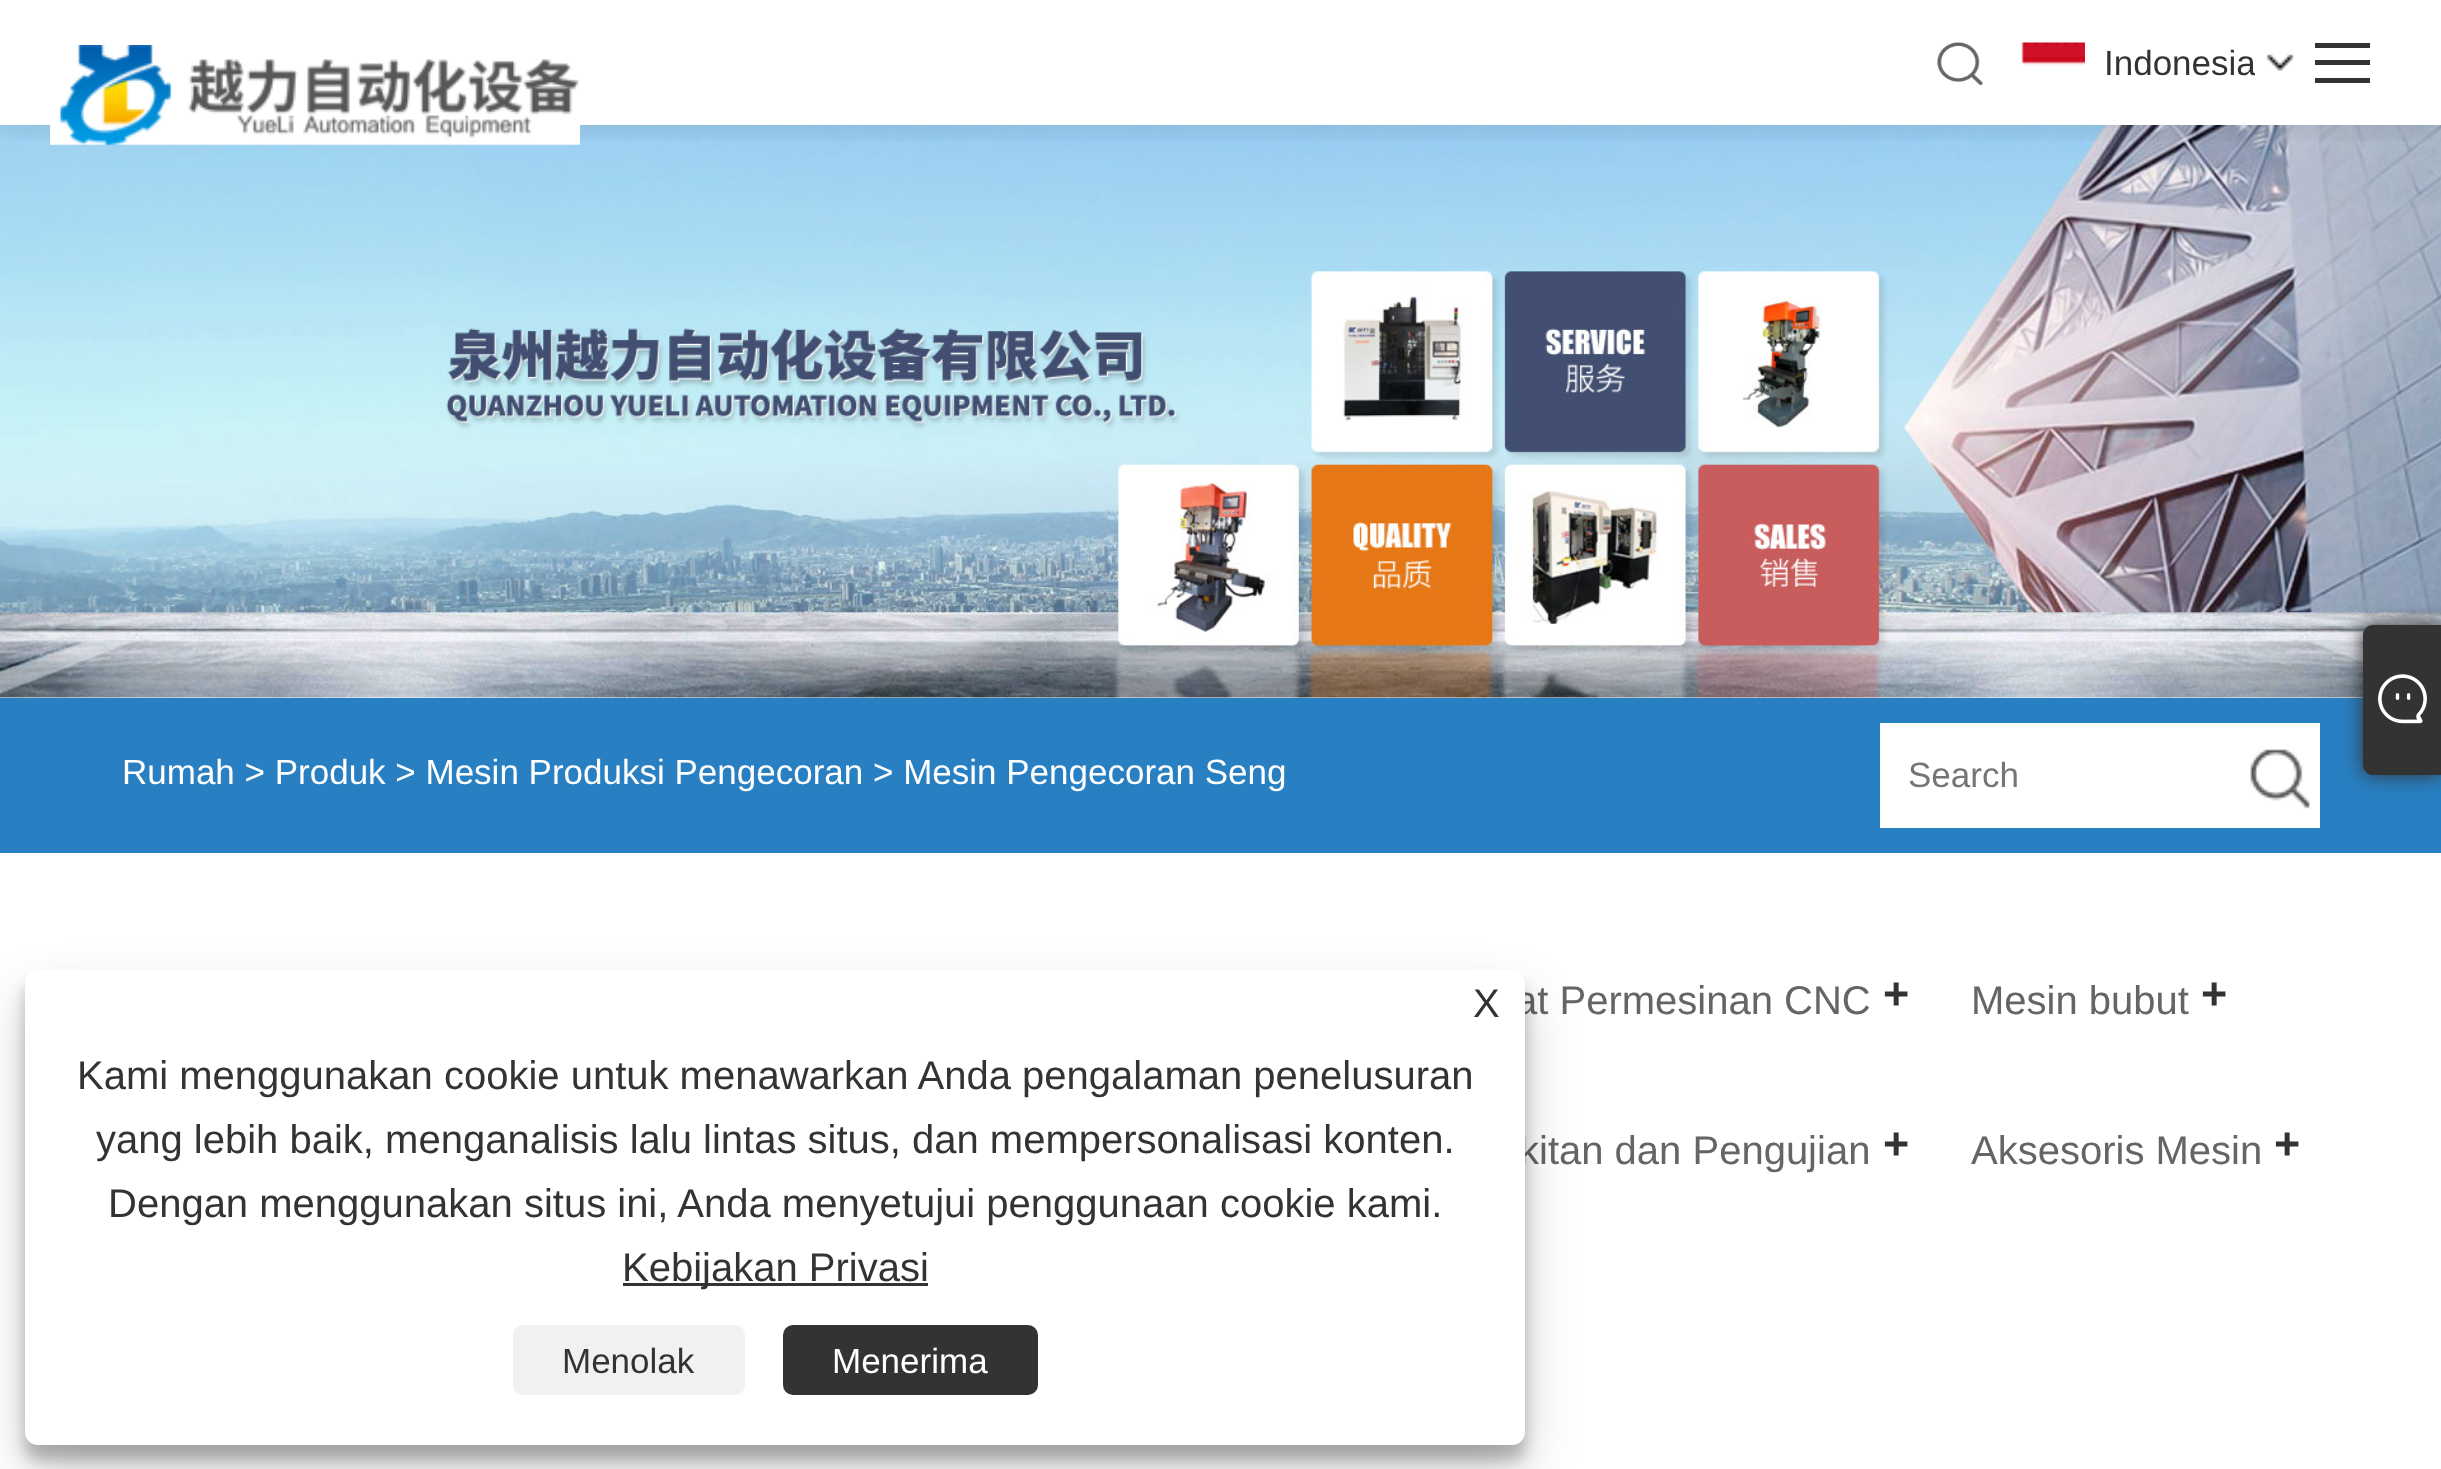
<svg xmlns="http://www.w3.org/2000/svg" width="2441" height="1469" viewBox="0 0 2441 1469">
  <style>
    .t1 { font: 35px Liberation Sans; fill: #333; }
    .t2 { font: 35px Liberation Sans; fill: #fff; }
    .t3 { font: 35px Liberation Sans; fill: #757575; }
    .t4 { font: 40px Liberation Sans; fill: #646565; }
    .t5 { font: bold 45px Liberation Sans; fill: #333; }
    .t6 { font: 40px Liberation Sans; fill: #333; }
  </style>
  <defs>
    <clipPath id="clip1"><rect x="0" y="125" width="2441" height="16"/></clipPath>
    <clipPath id="clip2"><rect x="2073" y="0" width="182" height="125"/></clipPath>
  </defs>
  <rect width="100%" height="100%" fill="#fff"/>
  <image x="0" y="125" width="2441" height="573" href="images/5.png"/>
  <g clip-path="url(#clip1)">
    <rect x="0" y="3" width="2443" height="125" fill="#0000001a" filter="blur(15px)"/>
  </g>
  <image x="50" y="45" width="530" height="100" href="images/1.png"/>
  <image x="1937" y="42" width="46" height="43" href="images/2.png"/>
  <image x="2266" y="54" width="28" height="17" href="images/3.png"/>
  <image x="2021" y="42" width="64" height="24" href="images/4.png"/>
  <g clip-path="url(#clip2)">
    <text x="2104" y="75" class="t1">Indonesia</text>
  </g>
  <rect x="2315" y="43" width="55" height="5" fill="#333"/>
  <rect x="2315" y="60" width="55" height="5" fill="#333"/>
  <rect x="2315" y="78" width="55" height="5" fill="#333"/>
  <rect x="0" y="698" width="2441" height="155" fill="#287fc2"/>
  <text x="122" y="784" class="t2">Rumah &gt; Produk &gt; Mesin Produksi Pengecoran &gt; Mesin Pengecoran Seng</text>
  <rect x="1880" y="723" width="440" height="105" fill="#fff"/>
  <text x="1908" y="787" class="t3">Search</text>
  <image x="2250" y="749" width="60" height="60" href="images/6.png"/>
  <text x="1515" y="1014" class="t4">at Permesinan CNC</text>
  <text x="1883" y="1009" class="t5">+</text>
  <text x="1971" y="1014" class="t4">Mesin bubut</text>
  <text x="2201" y="1009" class="t5">+</text>
  <text x="1519" y="1164" class="t4">kitan dan Pengujian</text>
  <text x="1883" y="1159" class="t5">+</text>
  <text x="1971" y="1164" class="t4">Aksesoris Mesin</text>
  <text x="2274" y="1159" class="t5">+</text>
  <rect x="2363" y="625" width="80" height="150" rx="10" fill="#333" filter="blur(10px)"/>
  <path d="M2373 625H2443V775H2373C2367.5 775 2363 770.5 2363 765V635C2363 629.5 2367.5 625 2373 625Z" fill="#333"/>
  <image x="2378" y="674" width="49" height="50" href="images/7.png"/>
  <rect x="25" y="985" width="1500" height="475" rx="13" fill="#0000003b" filter="blur(7.5px)"/>
  <rect x="25" y="995" width="1500" height="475" rx="13" fill="#00000030" filter="blur(25px)"/>
  <rect x="25" y="970" width="1500" height="475" rx="13" fill="#fff"/>
  <text x="1473" y="1017" class="t6">X</text>
  <text x="77" y="1089" class="t6">Kami menggunakan cookie untuk menawarkan Anda pengalaman penelusuran</text>
  <text x="96" y="1153" class="t6">yang lebih baik, menganalisis lalu lintas situs, dan mempersonalisasi konten.</text>
  <text x="108" y="1217" class="t6">Dengan menggunakan situs ini, Anda menyetujui penggunaan cookie kami.</text>
  <rect x="623" y="1283" width="305" height="3" fill="#333"/>
  <text x="622" y="1281" class="t6">Kebijakan Privasi</text>
  <rect x="513" y="1325" width="232" height="70" rx="10" fill="#f1f1f1"/>
  <text x="562" y="1373" class="t1">Menolak</text>
  <rect x="783" y="1325" width="255" height="70" rx="10" fill="#333"/>
  <text x="832" y="1373" class="t2">Menerima</text>
</svg>
